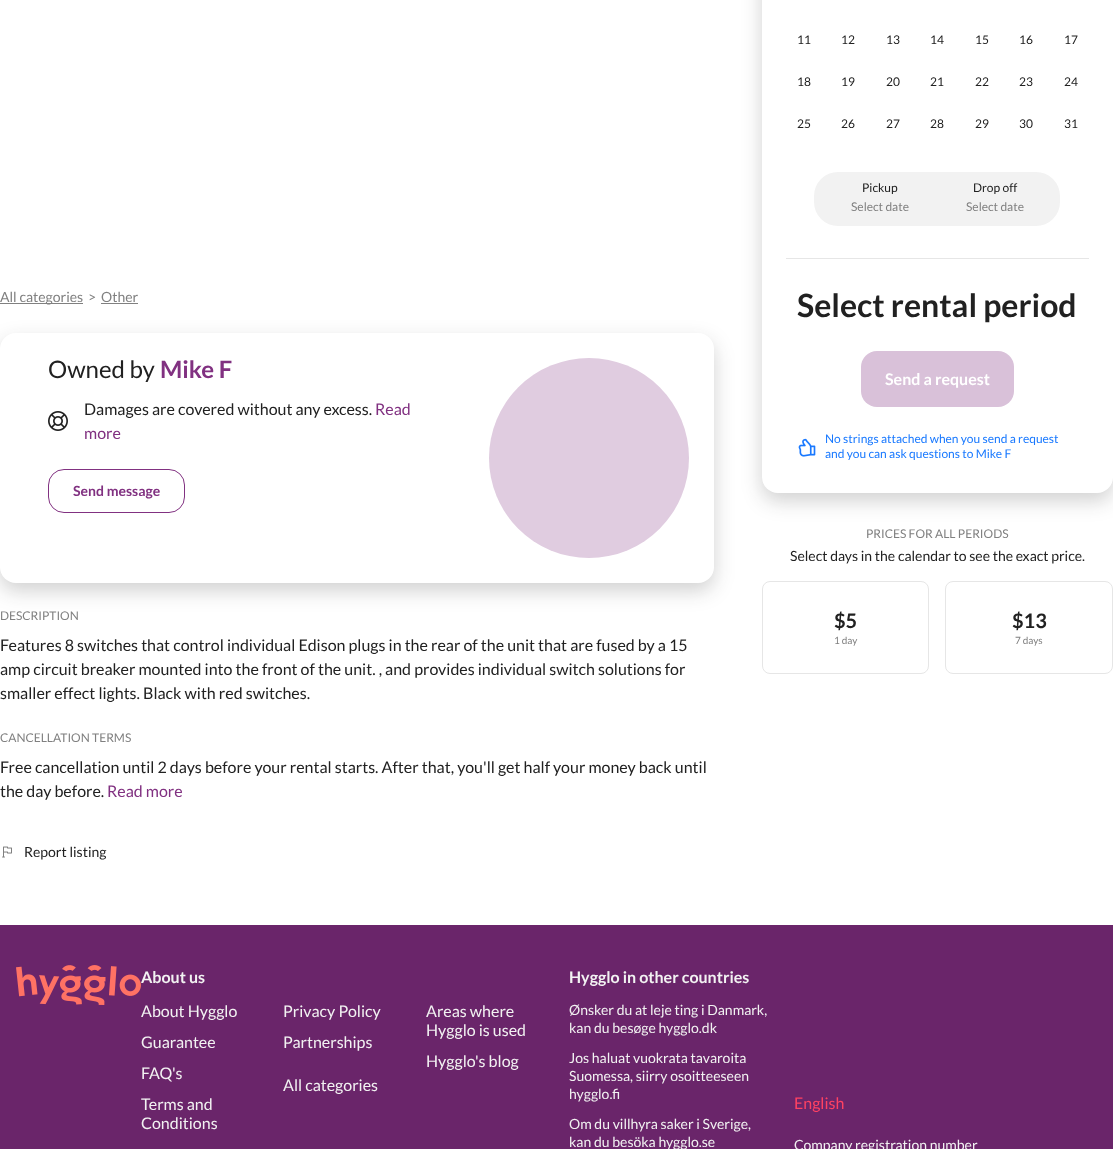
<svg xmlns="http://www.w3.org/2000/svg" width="1113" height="1149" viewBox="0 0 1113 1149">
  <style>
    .t1 { font: 14px Lato; fill: #808080; }
    .t2 { font: 24px Lato; fill: #212121; }
    .t3 { font: bold 24px Lato; fill: #813181; }
    .t4 { font: 16px Lato; fill: #212121; }
    .t5 { font: 16px Lato; fill: #813181; }
    .t6 { font: bold 14px Lato; fill: #813181; }
    .t7 { font: 12px Lato; fill: #808080; }
    .t8 { font: 12px Lato; fill: #212121; }
    .t9 { font: bold 32px Lato; fill: #212121; }
    .t10 { font: bold 16px Lato; fill: #fff; }
    .t11 { font: 12px Lato; fill: #1979ff; }
    .t12 { font: 14px Lato; fill: #212121; }
    .t13 { font: bold 20px Lato; fill: #212121; }
    .t14 { font: 10px Lato; fill: #808080; }
    .t15 { font: bold 16px Lato; fill: #f2f2f2; }
    .t16 { font: 16px Lato; fill: #f2f2f2; }
    .t17 { font: 14px Lato; fill: #f2f2f2; }
    .t18 { font: 16px Lato; fill: #ff4262; }
  </style>
  <rect width="100%" height="100%" fill="#fff"/>
  <rect x="0" y="303" width="83" height="1" fill="#808080"/>
  <text x="0" y="302" class="t1">All categories</text>
  <text x="88" y="302" class="t1">&gt;</text>
  <text x="101" y="302" class="t1">Other</text>
  <rect x="101" y="303" width="37" height="1" fill="#808080"/>
  <rect x="0" y="341" width="714" height="250" rx="16" fill="#1a1a1a33" filter="blur(10px)"/>
  <rect x="0" y="333" width="714" height="250" rx="16" fill="#fff"/>
  <text x="48" y="378" class="t2">Owned by</text>
  <text x="160" y="378" class="t3">Mike F</text>
  <image x="48" y="411" width="20" height="20" href="images/1.png"/>
  <text x="84" y="415" class="t4">Damages are covered without any excess.</text>
  <text x="375" y="415" class="t5">Read</text>
  <text x="84" y="439" class="t5">more</text>
  <rect x="48.5" y="469.5" width="136" height="43" rx="15.5" fill="none" stroke="#813181"/>
  <text x="73" y="496" class="t6">Send message</text>
  <circle cx="589" cy="458" r="100" fill="#e0cce0"/>
  <text x="0" y="620" class="t7">DESCRIPTION</text>
  <text x="0" y="651" class="t4">Features 8 switches that control individual Edison plugs in the rear of the unit that are fused by a 15</text>
  <text x="0" y="675" class="t4">amp circuit breaker mounted into the front of the unit. , and provides individual switch solutions for</text>
  <text x="0" y="699" class="t4">smaller effect lights. Black with red switches.</text>
  <text x="0" y="742" class="t7">CANCELLATION TERMS</text>
  <text x="0" y="773" class="t4">Free cancellation until 2 days before your rental starts. After that, you'll get half your money back until</text>
  <text x="0" y="797" class="t4">the day before.</text>
  <text x="107" y="797" class="t5">Read more</text>
  <rect x="762" y="-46" width="351" height="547" rx="16" fill="#1a1a1a33" filter="blur(10px)"/>
  <rect x="762" y="-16" width="351" height="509" rx="16" fill="#fff"/>
  <text x="797" y="44" class="t8">11</text>
  <text x="841" y="44" class="t8">12</text>
  <text x="886" y="44" class="t8">13</text>
  <text x="930" y="44" class="t8">14</text>
  <text x="975" y="44" class="t8">15</text>
  <text x="1019" y="44" class="t8">16</text>
  <text x="1064" y="44" class="t8">17</text>
  <text x="797" y="86" class="t8">18</text>
  <text x="841" y="86" class="t8">19</text>
  <text x="886" y="86" class="t8">20</text>
  <text x="930" y="86" class="t8">21</text>
  <text x="975" y="86" class="t8">22</text>
  <text x="1019" y="86" class="t8">23</text>
  <text x="1064" y="86" class="t8">24</text>
  <text x="797" y="128" class="t8">25</text>
  <text x="841" y="128" class="t8">26</text>
  <text x="886" y="128" class="t8">27</text>
  <text x="930" y="128" class="t8">28</text>
  <text x="975" y="128" class="t8">29</text>
  <text x="1019" y="128" class="t8">30</text>
  <text x="1064" y="128" class="t8">31</text>
  <rect x="814" y="172" width="246" height="54" rx="24" fill="#f2f2f2"/>
  <text x="862" y="192" class="t8">Pickup</text>
  <text x="851" y="211" class="t7">Select date</text>
  <text x="973" y="192" class="t8">Drop off</text>
  <text x="966" y="211" class="t7">Select date</text>
  <rect x="786" y="258" width="303" height="1" fill="#e6e6e6"/>
  <text x="797" y="317" class="t9">Select rental period</text>
  <rect x="861" y="351" width="153" height="56" rx="16" fill="#d9c1d9"/>
  <text x="885" y="385" class="t10">Send a request</text>
  <image x="798" y="438" width="18" height="19" href="images/2.png"/>
  <text x="825" y="443" class="t11">No strings attached when you send a request</text>
  <text x="825" y="458" class="t11">and you can ask questions to Mike F</text>
  <text x="866" y="538" class="t7">PRICES FOR ALL PERIODS</text>
  <text x="790" y="561" class="t12">Select days in the calendar to see the exact price.</text>
  <rect x="762.5" y="581.5" width="166" height="92" rx="7.5" fill="none" stroke="#e6e6e6"/>
  <text x="834" y="628" class="t13">$5</text>
  <text x="834" y="644" class="t14">1 day</text>
  <rect x="945.5" y="581.5" width="167" height="92" rx="7.5" fill="none" stroke="#e6e6e6"/>
  <text x="1012" y="628" class="t13">$13</text>
  <text x="1015" y="644" class="t14">7 days</text>
  <image x="2" y="846" width="10" height="12" href="images/3.png"/>
  <text x="24" y="857" class="t12">Report listing</text>
  <rect x="0" y="925" width="1113" height="224" fill="#6a256a"/>
  <image x="16" y="965" width="125" height="40" href="images/4.png"/>
  <text x="141" y="983" class="t15">About us</text>
  <text x="141" y="1017" class="t16">About Hygglo</text>
  <text x="141" y="1048" class="t16">Guarantee</text>
  <text x="141" y="1079" class="t16">FAQ's</text>
  <text x="141" y="1110" class="t16">Terms and</text>
  <text x="141" y="1129" class="t16">Conditions</text>
  <text x="283" y="1017" class="t16">Privacy Policy</text>
  <text x="283" y="1048" class="t16">Partnerships</text>
  <text x="283" y="1091" class="t16">All categories</text>
  <text x="426" y="1017" class="t16">Areas where</text>
  <text x="426" y="1036" class="t16">Hygglo is used</text>
  <text x="426" y="1067" class="t16">Hygglo's blog</text>
  <text x="569" y="983" class="t15">Hygglo in other countries</text>
  <text x="569" y="1015" class="t17">Ønsker du at leje ting i Danmark,</text>
  <text x="569" y="1033" class="t17">kan du besøge hygglo.dk</text>
  <text x="569" y="1063" class="t17">Jos haluat vuokrata tavaroita</text>
  <text x="569" y="1081" class="t17">Suomessa, siirry osoitteeseen</text>
  <text x="569" y="1099" class="t17">hygglo.fi</text>
  <text x="569" y="1129" class="t17">Om du villhyra saker i Sverige,</text>
  <text x="569" y="1147" class="t17">kan du besöka hygglo.se</text>
  <text x="794" y="1109" class="t18">English</text>
  <text x="794" y="1150" class="t17">Company registration number</text>
</svg>
